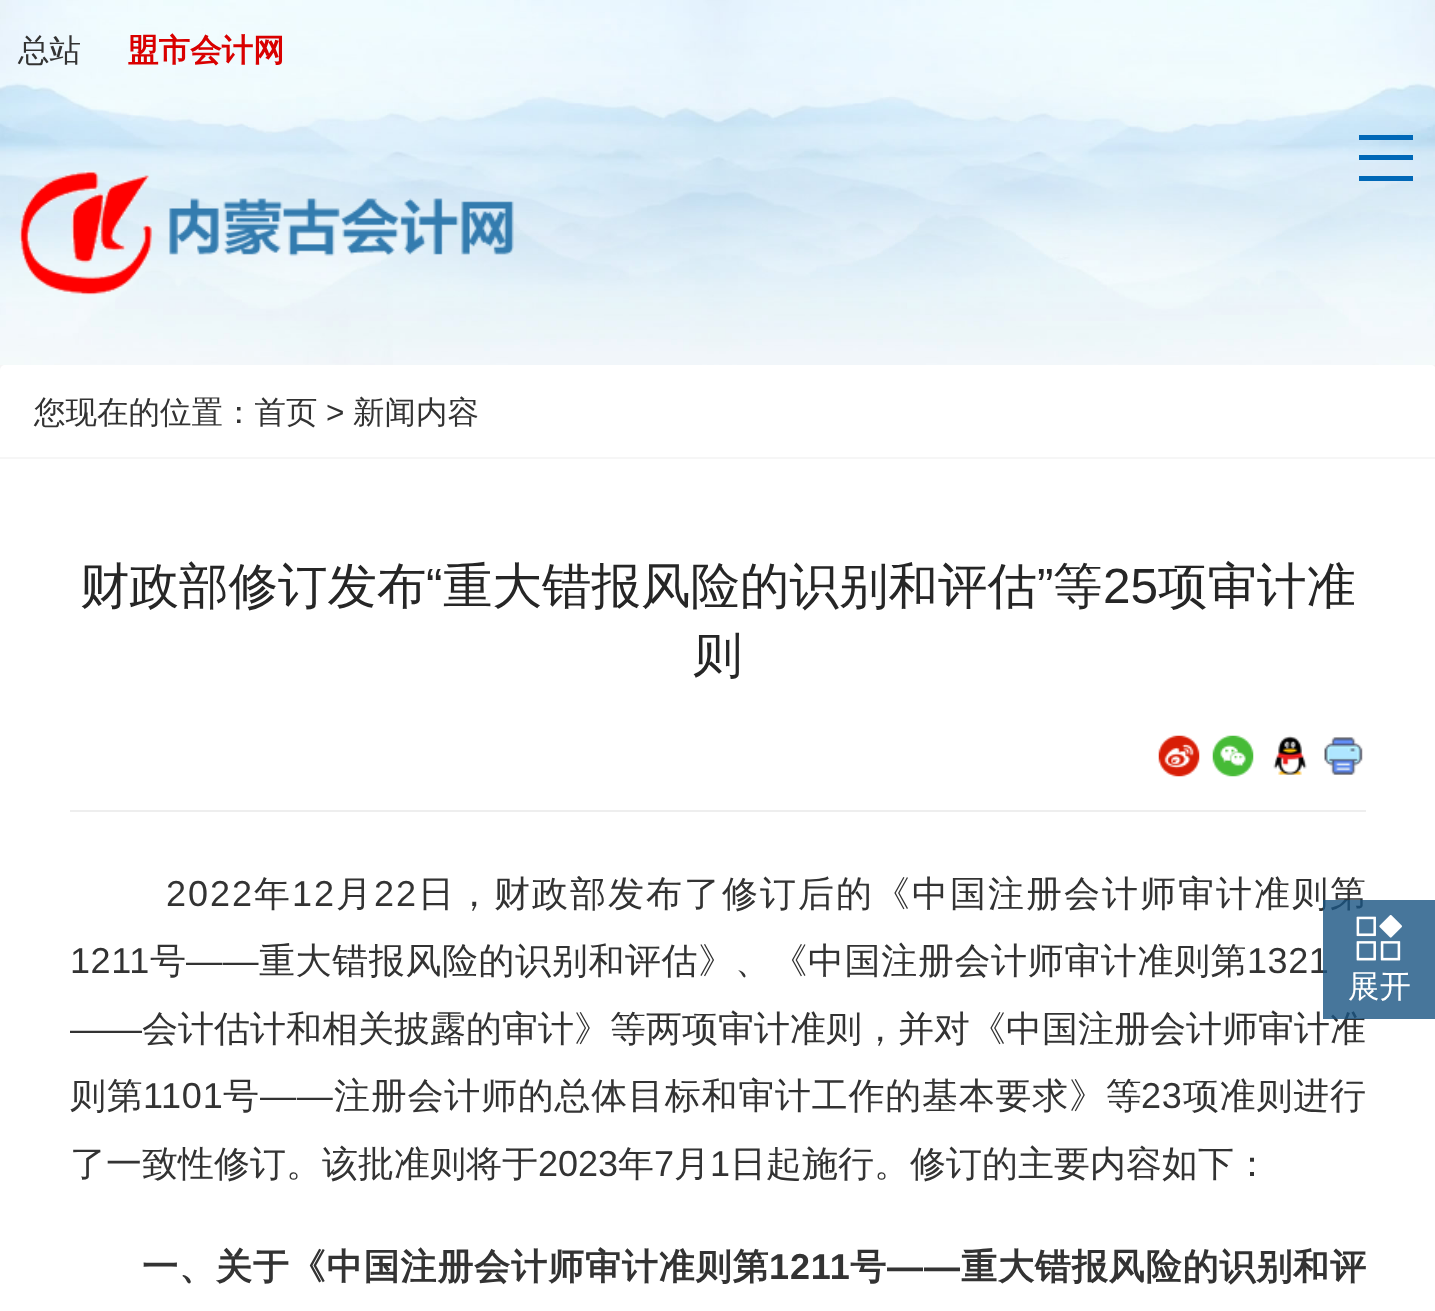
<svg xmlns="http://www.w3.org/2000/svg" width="1435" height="1311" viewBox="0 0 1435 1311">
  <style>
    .t1 { font: 500 31.5px WenQuanYi Zen Hei; fill: #333; }
    .t2 { font: bold 31.5px WenQuanYi Zen Hei; fill: #d90000; }
    .t3 { font: 31.5px Liberation Sans; fill: #333; }
    .t4 { font: 500 49.5px WenQuanYi Zen Hei; fill: #262626; }
    .t5 { font: 49.5px Liberation Sans; fill: #262626; }
    .t6 { font: 36px Liberation Sans; letter-spacing: 2px; fill: #333; }
    .t7 { font: 500 36px WenQuanYi Zen Hei; letter-spacing: 2px; fill: #333; }
    .t8 { font: 36px Liberation Sans; letter-spacing: 0.6px; fill: #333; }
    .t9 { font: 500 36px WenQuanYi Zen Hei; letter-spacing: 0.6px; fill: #333; }
    .t10 { font: 36px Liberation Sans; fill: #333; }
    .t11 { font: 500 36px WenQuanYi Zen Hei; fill: #333; }
    .t12 { font: 500 36px WenQuanYi Zen Hei; letter-spacing: 0.75px; fill: #333; }
    .t13 { font: 36px Liberation Sans; letter-spacing: 0.75px; fill: #333; }
    .t14 { font: bold 36px WenQuanYi Zen Hei; letter-spacing: 0.9px; fill: #333; }
    .t15 { font: bold 36px Liberation Sans; letter-spacing: 0.9px; fill: #333; }
    .t16 { font: 500 31.5px WenQuanYi Zen Hei; fill: #fff; }
  </style>
  <defs>
    <clipPath id="clip1"><rect x="70" y="862" width="1296" height="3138"/></clipPath>
  </defs>
  <rect width="100%" height="100%" fill="#fff"/>
  <image x="0" y="0" width="1435" height="365" href="images/1.png"/>
  <text x="18" y="61" class="t1">总站</text>
  <text x="127" y="61" class="t2">盟市会计网</text>
  <rect x="1359" y="135" width="54" height="5" fill="#0068b7"/>
  <rect x="1359" y="155" width="54" height="5" fill="#0068b7"/>
  <rect x="1359" y="176" width="54" height="5" fill="#0068b7"/>
  <image x="19" y="170" width="495" height="125" href="images/2.png"/>
  <rect x="0" y="365" width="1435" height="5" fill="#f5f5f5"/>
  <rect x="0" y="365" width="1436" height="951" rx="5" fill="#fff"/>
  <rect x="0" y="457" width="1435" height="2" fill="#f6f6f6"/>
  <text x="34" y="423" class="t1">您现在的位置：首页</text>
  <text x="326" y="423" class="t3">&gt;</text>
  <text x="353" y="423" class="t1">新闻内容</text>
  <text x="80" y="603" class="t4">财政部修订发布</text>
  <text x="426" y="603" class="t5">“</text>
  <text x="443" y="603" class="t4">重大错报风险的识别和评估</text>
  <text x="1037" y="603" class="t5">”</text>
  <text x="1053" y="603" class="t4">等</text>
  <text x="1103" y="603" class="t5">25</text>
  <text x="1158" y="603" class="t4">项审计准</text>
  <text x="693" y="672" class="t4">则</text>
  <image x="1158" y="735" width="42" height="42" href="images/3.png"/>
  <image x="1212" y="735" width="42" height="42" href="images/4.png"/>
  <image x="1273" y="735" width="34" height="40" href="images/5.png"/>
  <image x="1324" y="737" width="39" height="38" href="images/6.png"/>
  <rect x="70" y="810" width="1296" height="2" fill="#eee"/>
  <text x="166" y="906" class="t6">2022</text>
  <text x="254" y="906" class="t7">年</text>
  <text x="292" y="906" class="t6">12</text>
  <text x="336" y="906" class="t7">月</text>
  <text x="374" y="906" class="t6">22</text>
  <text x="418" y="906" class="t7">日，财政部发布了修订后的《中国注册会计师审计准则第</text>
  <text x="70" y="973" class="t8">1211</text>
  <text x="150" y="973" class="t9">号</text>
  <text x="186" y="973" class="t8">——</text>
  <text x="259" y="973" class="t9">重大错报风险的识别和评估》、《中国注册会计师审计准则第</text>
  <text x="1247" y="973" class="t8">1321</text>
  <g clip-path="url(#clip1)">
    <text x="70" y="1041" class="t10">——</text>
  </g>
  <text x="142" y="1041" class="t11">会计估计和相关披露的审计》等两项审计准则，并对《中国注册会计师审计准</text>
  <text x="70" y="1108" class="t12">则第</text>
  <text x="143" y="1108" class="t13">1101</text>
  <text x="223" y="1108" class="t12">号</text>
  <text x="260" y="1108" class="t13">——</text>
  <text x="334" y="1108" class="t12">注册会计师的总体目标和审计工作的基本要求》等</text>
  <text x="1141" y="1108" class="t13">23</text>
  <text x="1183" y="1108" class="t12">项准则进行</text>
  <text x="70" y="1176" class="t11">了一致性修订。该批准则将于</text>
  <text x="538" y="1176" class="t10">2023</text>
  <text x="618" y="1176" class="t11">年</text>
  <text x="654" y="1176" class="t10">7</text>
  <text x="674" y="1176" class="t11">月</text>
  <text x="710" y="1176" class="t10">1</text>
  <text x="730" y="1176" class="t11">日起施行。修订的主要内容如下：</text>
  <text x="142" y="1279" class="t14">一、关于《中国注册会计师审计准则第</text>
  <text x="769" y="1279" class="t15">1211</text>
  <text x="850" y="1279" class="t14">号</text>
  <text x="887" y="1279" class="t15">——</text>
  <text x="961" y="1279" class="t14">重大错报风险的识别和评</text>
  <rect x="1323" y="900" width="112" height="119" fill="#195482cc"/>
  <image x="1356" y="915" width="46" height="46" href="images/7.png"/>
  <text x="1348" y="997" class="t16">展开</text>
</svg>
